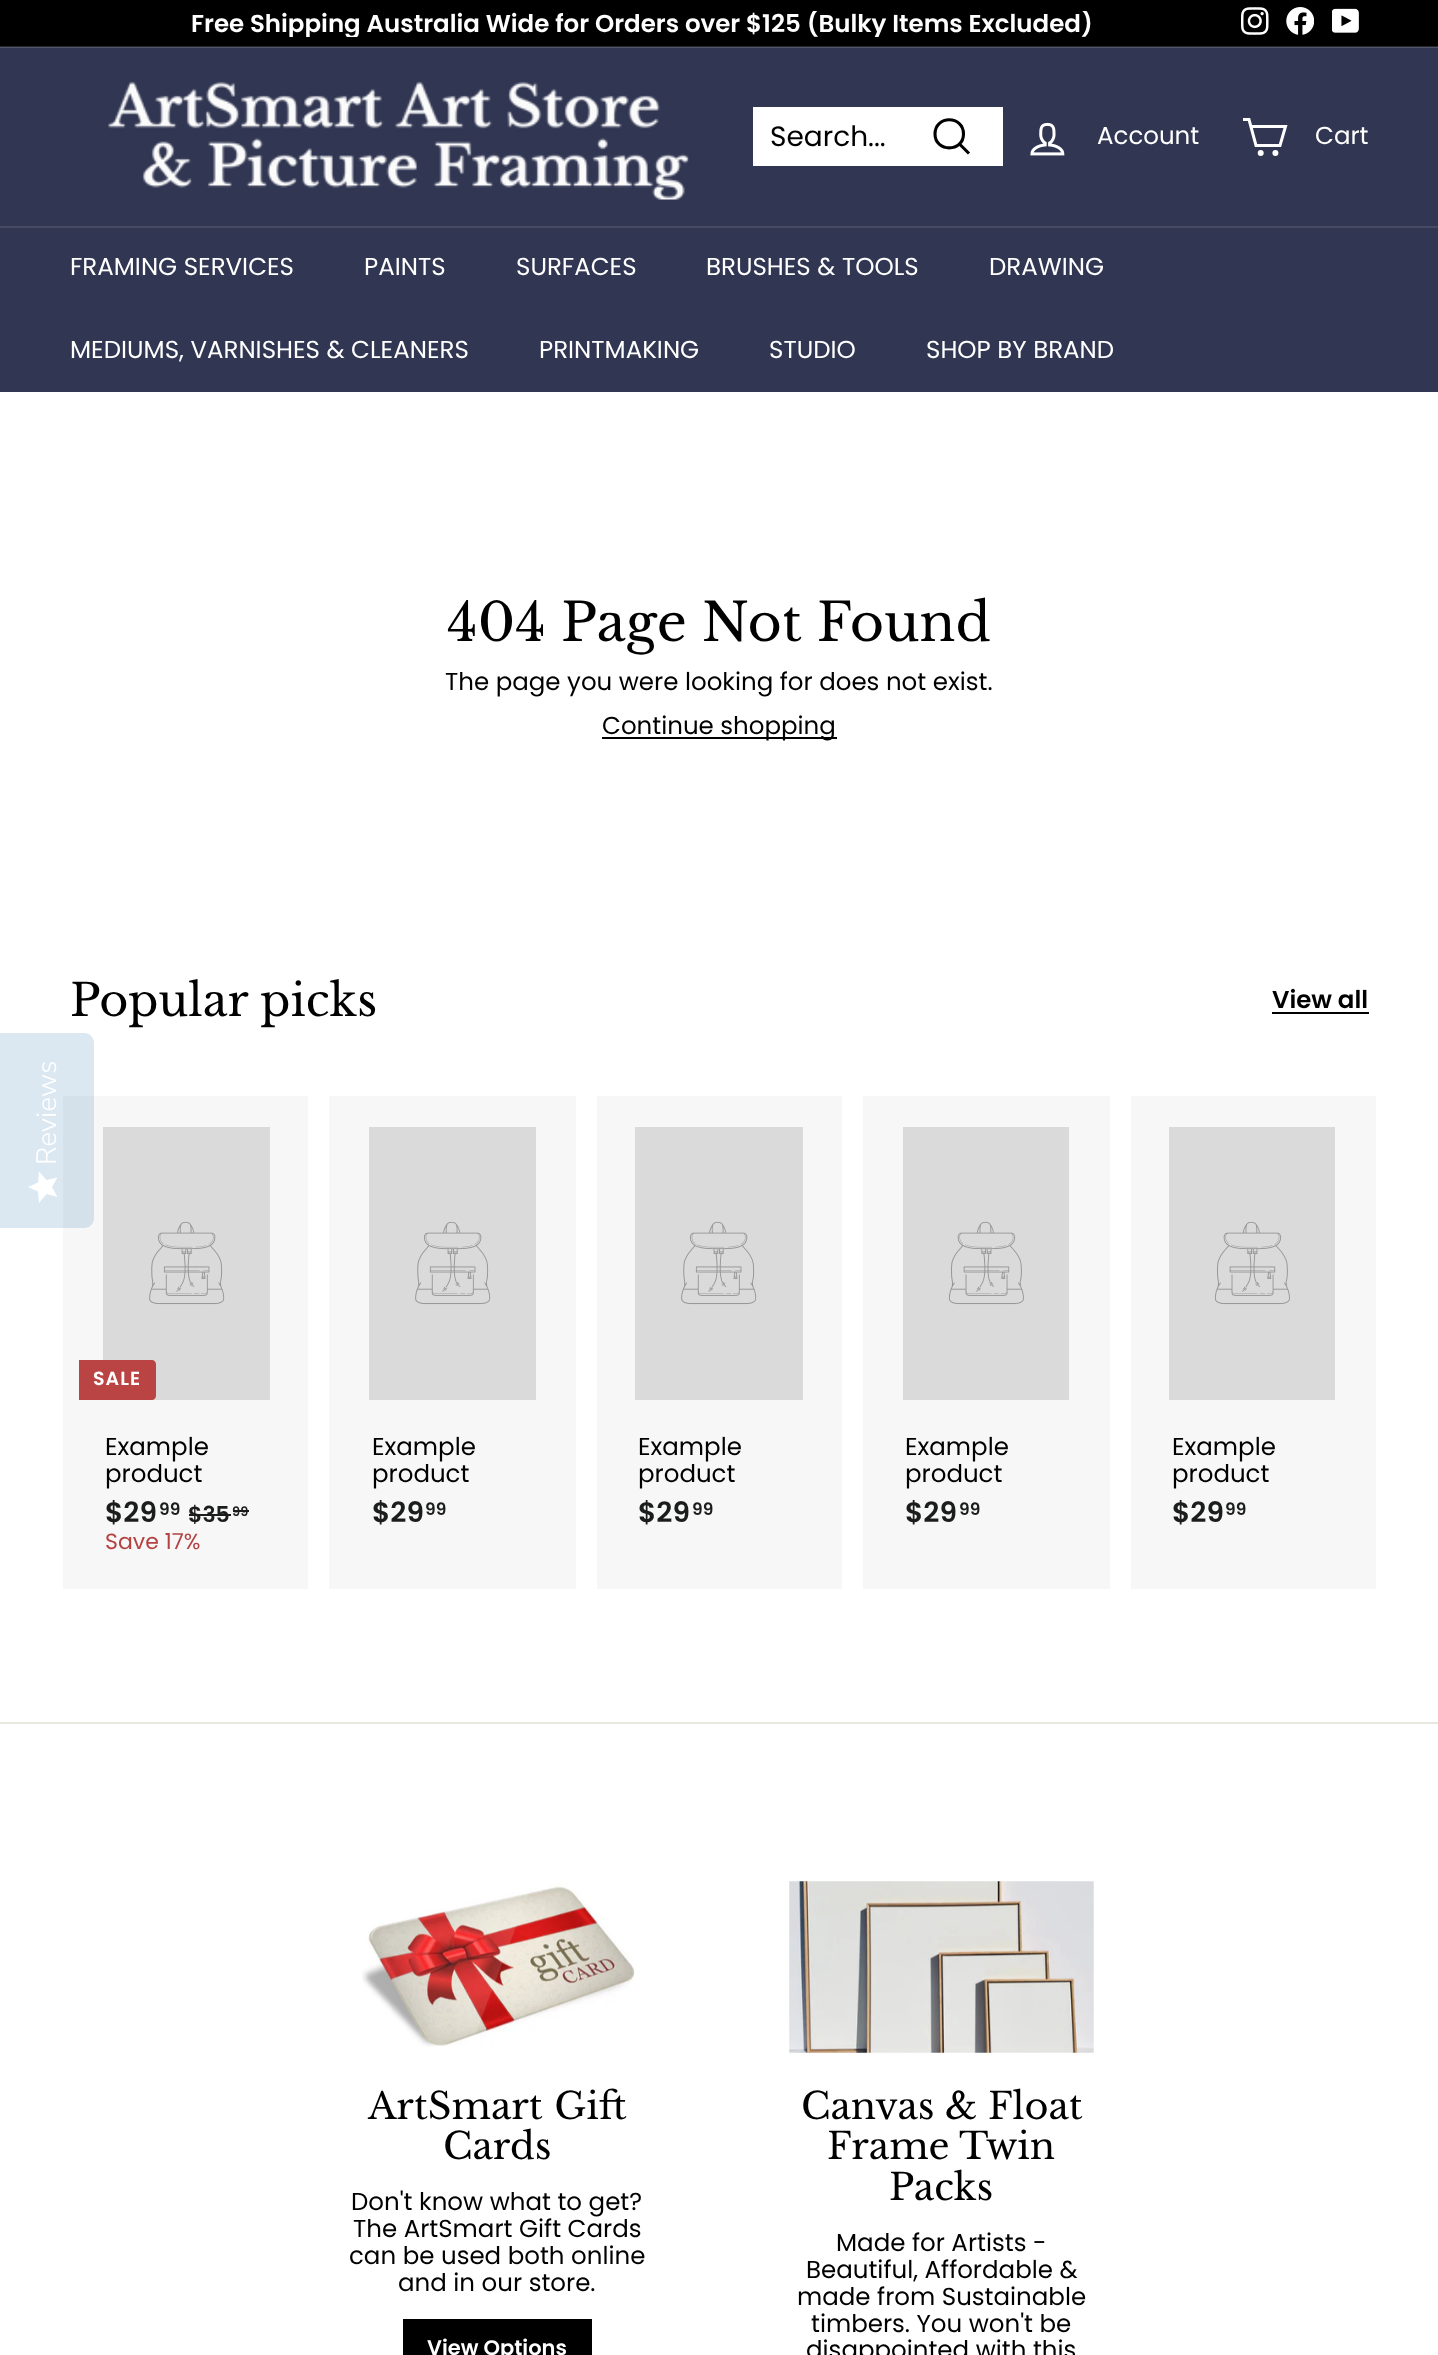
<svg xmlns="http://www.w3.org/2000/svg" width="1438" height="2355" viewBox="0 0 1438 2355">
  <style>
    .t1 { font: 300 28px Nunito Sans; fill: #fff; }
    .t2 { font: 600 24.5px Poppins; fill: #fff; }
    .t3 { font: 28px Poppins; fill: #000; }
    .t4 { font: 24.5px Poppins; fill: #fff; }
    .t5 { font: 52.5px Libre Baskerville; fill: #000; }
    .t6 { font: 24.5px Poppins; fill: #000; }
    .t7 { font: 44.5px Libre Baskerville; fill: #000; }
    .t8 { font: 600 24.5px Poppins; fill: #000; }
    .t9 { font: 600 19px Poppins; letter-spacing: 1px; fill: #fff; }
    .t10 { font: 600 28px Poppins; fill: #1b1c1c; }
    .t11 { font: 600 17px Poppins; fill: #1b1c1c; }
    .t12 { font: 600 22px Poppins; fill: #1b1c1c; }
    .t13 { font: 600 13px Poppins; fill: #1b1c1c; }
    .t14 { font: 22px Poppins; fill: #b44242; }
    .t15 { font: 36.75px Libre Baskerville; fill: #000; }
    .t16 { font: 600 21px Poppins; fill: #fff; }
  </style>
  <defs>
    <linearGradient id="g1" gradientUnits="userSpaceOnUse" x1="28" y1="1203" x2="28" y2="1171"><stop offset="1" stop-color="#fff"/><stop offset="1" stop-color="#fbfbfb"/></linearGradient>
    <clipPath id="clip1"><rect x="70" y="11" width="1145" height="26"/></clipPath>
  </defs>
  <rect width="100%" height="100%" fill="#fff"/>
  <rect x="1131" y="1096" width="245" height="493" fill="#f7f7f7"/>
  <rect x="863" y="1096" width="247" height="493" fill="#f7f7f7"/>
  <rect x="597" y="1096" width="245" height="493" fill="#f7f7f7"/>
  <rect x="329" y="1096" width="247" height="493" fill="#f7f7f7"/>
  <rect x="63" y="1096" width="245" height="493" fill="#f7f7f7"/>
  <path d="M0 1228V1033H84C90 1033 94 1038 94 1043V1218C94 1223 90 1228 84 1228Z" fill="#498cbc33"/>
  <text x="56" y="1165" transform="rotate(-90 56 1165)" class="t1">Reviews</text>
  <path d="M52 1187L57.5 1177.5L46.5 1180L39 1171.5L38 1182.5L28 1187L38 1191.5L39 1203L46.5 1194L57.5 1197Z" fill="url(#g1)"/>
  <rect x="0" y="0" width="1438" height="46" fill="#000"/>
  <rect x="0" y="46" width="1438" height="1" fill="#262626"/>
  <g clip-path="url(#clip1)">
    <text x="191" y="32" class="t2">Free Shipping Australia Wide for Orders over $125 (Bulky Items Excluded)</text>
  </g>
  <image x="1241" y="7" width="28" height="28" href="images/1.png"/>
  <image x="1286" y="7" width="28" height="28" href="images/2.png"/>
  <image x="1332" y="8" width="27" height="25" href="images/3.png"/>
  <rect x="0" y="48" width="1438" height="178" fill="#313652"/>
  <rect x="0" y="47" width="1438" height="1" fill="#50546c"/>
  <image x="108" y="81" width="581" height="119" href="images/4.png"/>
  <rect x="753" y="107" width="250" height="59" fill="#fff"/>
  <text x="770" y="146" class="t3">Search...</text>
  <path d="M963.5 134C963.5 152.5 935 152.5 935 134C935 115 963.5 115 963.5 134ZM969 153.5L959.5 144" fill="none" stroke="#000" stroke-width="3.1"/>
  <image x="1030" y="122" width="35" height="34" href="images/5.png"/>
  <text x="1097" y="144" class="t4">Account</text>
  <path d="M1251 126.5H1285.5L1280 145.5H1256L1249 119.5H1243" fill="none" stroke="#fff" stroke-width="3"/>
  <circle cx="1260.7" cy="152.9" r="1.5" fill="none" stroke="#fff" stroke-width="3"/>
  <circle cx="1275.4" cy="152.9" r="1.5" fill="none" stroke="#fff" stroke-width="3"/>
  <text x="1315" y="144" class="t4">Cart</text>
  <path d="M0 226V392H1438V1451H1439V226Z" fill="#313652"/>
  <rect x="0" y="226" width="1438" height="2" fill="#464a63"/>
  <text x="70" y="275" class="t4">FRAMING SERVICES</text>
  <text x="364" y="275" class="t4">PAINTS</text>
  <text x="516" y="275" class="t4">SURFACES</text>
  <text x="706" y="275" class="t4">BRUSHES &amp; TOOLS</text>
  <text x="989" y="275" class="t4">DRAWING</text>
  <text x="70" y="358" class="t4">MEDIUMS, VARNISHES &amp; CLEANERS</text>
  <text x="539" y="358" class="t4">PRINTMAKING</text>
  <text x="769" y="358" class="t4">STUDIO</text>
  <text x="926" y="358" class="t4">SHOP BY BRAND</text>
  <text x="447" y="641" class="t5">404 Page Not Found</text>
  <text x="445" y="690" class="t6">The page you were looking for does not exist.</text>
  <rect x="602" y="737" width="235" height="2" fill="#000"/>
  <text x="602" y="734" class="t6">Continue shopping</text>
  <text x="70" y="1016" class="t7">Popular picks</text>
  <text x="1272" y="1008" class="t8">View all</text>
  <rect x="1272" y="1012" width="97" height="2" fill="#000"/>
  <rect x="103" y="1127" width="167" height="273" fill="#dadada"/>
  <image x="149" y="1221" width="76" height="84" href="images/6.png"/>
  <path d="M79 1360H152C154 1360 156 1362 156 1364V1396C156 1398 154 1400 152 1400H79Z" fill="#ba4444"/>
  <text x="93" y="1385" class="t9">SALE</text>
  <text x="105" y="1455" class="t6">Example</text>
  <text x="105" y="1482" class="t6">product</text>
  <text x="105" y="1522" class="t10">$29</text>
  <text x="159" y="1515" class="t11">99</text>
  <text x="188" y="1522" class="t12">$35</text>
  <rect x="189" y="1514" width="42" height="2" fill="#1b1c1c"/>
  <text x="232" y="1516" class="t13">99</text>
  <rect x="233" y="1510" width="16" height="2" fill="#1b1c1c"/>
  <text x="105" y="1549" class="t14">Save 17%</text>
  <rect x="369" y="1127" width="167" height="273" fill="#dadada"/>
  <image x="415" y="1221" width="76" height="84" href="images/6.png"/>
  <text x="372" y="1455" class="t6">Example</text>
  <text x="372" y="1482" class="t6">product</text>
  <text x="372" y="1522" class="t10">$29</text>
  <text x="425" y="1515" class="t11">99</text>
  <rect x="635" y="1127" width="168" height="273" fill="#dadada"/>
  <image x="681" y="1221" width="76" height="84" href="images/6.png"/>
  <text x="638" y="1455" class="t6">Example</text>
  <text x="638" y="1482" class="t6">product</text>
  <text x="638" y="1522" class="t10">$29</text>
  <text x="692" y="1515" class="t11">99</text>
  <rect x="903" y="1127" width="166" height="273" fill="#dadada"/>
  <image x="948" y="1221" width="76" height="84" href="images/7.png"/>
  <text x="905" y="1455" class="t6">Example</text>
  <text x="905" y="1482" class="t6">product</text>
  <text x="905" y="1522" class="t10">$29</text>
  <text x="959" y="1515" class="t11">99</text>
  <rect x="1169" y="1127" width="166" height="273" fill="#dadada"/>
  <image x="1214" y="1221" width="76" height="84" href="images/7.png"/>
  <text x="1172" y="1455" class="t6">Example</text>
  <text x="1172" y="1482" class="t6">product</text>
  <text x="1172" y="1522" class="t10">$29</text>
  <text x="1225" y="1515" class="t11">99</text>
  <rect x="0" y="1722" width="1438" height="2" fill="#e8e8e1"/>
  <image x="362" y="1882" width="273" height="165" href="images/8.png"/>
  <text x="368" y="2119" word-spacing="1" class="t15">ArtSmart Gift</text>
  <text x="443" y="2159" class="t15">Cards</text>
  <text x="351" y="2210" class="t6">Don't know what to get?</text>
  <text x="353" y="2237" class="t6">The ArtSmart Gift Cards</text>
  <text x="349" y="2264" class="t6">can be used both online</text>
  <text x="398" y="2291" class="t6">and in our store.</text>
  <rect x="403" y="2319" width="189" height="36" fill="#000"/>
  <text x="427" y="2355" class="t16">View Options</text>
  <image x="789" y="1881" width="305" height="172" href="images/9.png"/>
  <text x="801" y="2119" class="t15">Canvas &amp; Float</text>
  <text x="827" y="2159" class="t15">Frame Twin</text>
  <text x="889" y="2200" class="t15">Packs</text>
  <text x="836" y="2251" class="t6">Made for Artists -</text>
  <text x="806" y="2278" class="t6">Beautiful, Affordable &amp;</text>
  <text x="797" y="2305" class="t6">made from Sustainable</text>
  <text x="811" y="2332" class="t6">timbers. You won't be</text>
  <text x="806" y="2358" class="t6">disappointed with this</text>
</svg>
